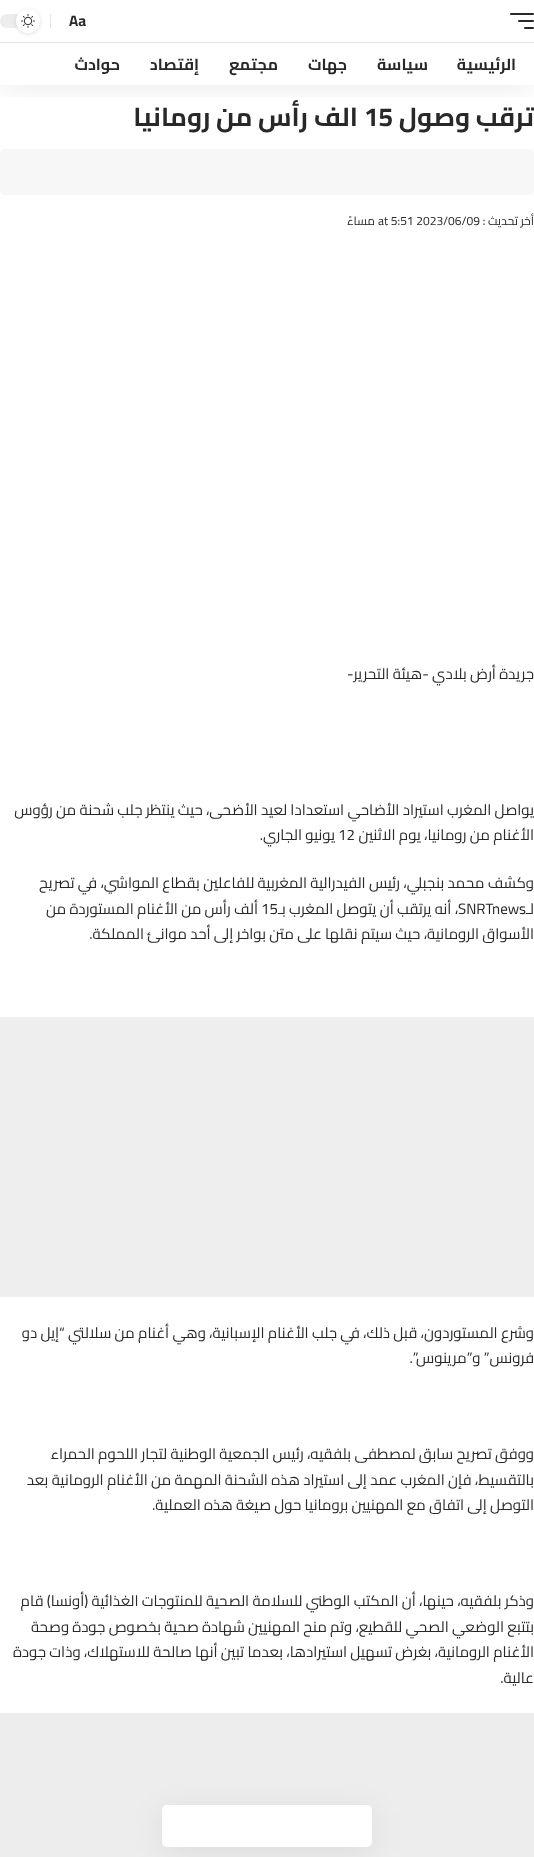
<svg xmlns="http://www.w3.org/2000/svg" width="534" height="1857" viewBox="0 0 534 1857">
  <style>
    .t1 { font: bold 15px Cairo; fill: #282828; }
    .t2 { font: bold 16px Cairo; letter-spacing: -0.25px; direction: rtl; fill: #282828; }
    .t3 { font: bold 26px Cairo; direction: rtl; fill: #282828; }
    .t4 { font: bold 26px Cairo; fill: #282828; }
    .t5 { font: 12px Cairo; direction: rtl; fill: #282828; }
    .t6 { font: 12px Cairo; fill: #282828; }
    .t7 { font: 15px Cairo; direction: rtl; fill: #282828; }
    .t8 { font: 15px Cairo; fill: #282828; }
  </style>
  <defs>
    <clipPath id="clip1"><rect x="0" y="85" width="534" height="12"/></clipPath>
  </defs>
  <rect width="100%" height="100%" fill="#fff"/>
  <g clip-path="url(#clip1)">
    <rect x="0" y="4" width="534" height="85" fill="#00000012" filter="blur(15px)"/>
  </g>
  <rect x="510" y="13" width="24" height="2" rx="1" fill="#282828"/>
  <rect x="518" y="20" width="16" height="2" rx="1" fill="#282828"/>
  <rect x="524" y="27" width="10" height="2" rx="1" fill="#282828"/>
  <text x="69" y="26" class="t1">Aa</text>
  <rect x="50" y="14" width="1" height="14" fill="#e4e4e4"/>
  <rect x="0" y="14" width="40" height="14" rx="7" fill="#ededed"/>
  <rect x="16" y="10" width="24" height="24" rx="12" fill="#0000001f" filter="blur(2px)"/>
  <circle cx="28" cy="21" r="12" fill="#fff"/>
  <image x="21" y="14" width="14" height="14" href="images/1.png"/>
  <rect x="0" y="42" width="534" height="1" fill="#e4e4e4"/>
  <text x="516" y="70" class="t2">الرئيسية</text>
  <text x="428" y="70" class="t2">سياسة</text>
  <text x="347" y="70" class="t2">جهات</text>
  <text x="278" y="70" class="t2">مجتمع</text>
  <text x="199" y="70" class="t2">إقتصاد</text>
  <text x="120" y="70" class="t2">حوادث</text>
  <text x="534" y="126" class="t3">ترقب وصول</text>
  <text x="364" y="126" class="t4">15</text>
  <text x="358" y="126" class="t3">الف رأس من رومانيا</text>
  <rect x="0" y="149" width="534" height="46" rx="5" fill="#f7f7f7"/>
  <text x="534" y="225" class="t5">أخر تحديث :</text>
  <text x="378" y="225" class="t6">at 5:51 2023/06/09</text>
  <text x="375" y="225" class="t5">مساءً</text>
  <text x="534" y="679" class="t7">جريدة أرض بلادي -هيئة التحرير-</text>
  <text x="534" y="815" class="t7">يواصل المغرب استيراد الأضاحي استعدادا لعيد الأضحى، حيث ينتظر جلب شحنة من رؤوس</text>
  <text x="534" y="840" class="t7">الأغنام من رومانيا، يوم الاثنين</text>
  <text x="338" y="840" class="t8">12</text>
  <text x="335" y="840" class="t7">يونيو الجاري.</text>
  <text x="534" y="888" class="t7">وكشف محمد بنجبلي، رئيس الفيدرالية المغربية للفاعلين بقطاع المواشي، في تصريح</text>
  <text x="458" y="914" class="t8">SNRTnews</text>
  <text x="534" y="914" class="t7">لـ</text>
  <text x="261" y="914" class="t8">15</text>
  <text x="458" y="914" class="t7">، أنه يرتقب أن يتوصل المغرب بـ</text>
  <text x="258" y="914" class="t7">ألف رأس من الأغنام المستوردة من</text>
  <text x="534" y="939" class="t7">الأسواق الرومانية، حيث سيتم نقلها على متن بواخر إلى أحد موانئ المملكة.</text>
  <rect x="0" y="1017" width="534" height="280" fill="#eee"/>
  <text x="534" y="1338" class="t7">وشرع المستوردون، قبل ذلك، في جلب الأغنام الإسبانية، وهي أغنام من سلالتي “إيل دو</text>
  <text x="534" y="1363" class="t7">فرونس” و”مرينوس”.</text>
  <text x="534" y="1459" class="t7">ووفق تصريح سابق لمصطفى بلفقيه، رئيس الجمعية الوطنية لتجار اللحوم الحمراء</text>
  <text x="534" y="1485" class="t7">بالتقسيط، فإن المغرب عمد إلى استيراد هذه الشحنة المهمة من الأغنام الرومانية بعد</text>
  <text x="534" y="1510" class="t7">التوصل إلى اتفاق مع المهنيين برومانيا حول صيغة هذه العملية.</text>
  <text x="534" y="1606" class="t7">وذكر بلفقيه، حينها، أن المكتب الوطني للسلامة الصحية للمنتوجات الغذائية (أونسا) قام</text>
  <text x="534" y="1632" class="t7">بتتبع الوضعي الصحي للقطيع، وتم منح المهنيين شهادة صحية بخصوص جودة وصحة</text>
  <text x="534" y="1657" class="t7">الأغنام الرومانية، بغرض تسهيل استيرادها، بعدما تبين أنها صالحة للاستهلاك، وذات جودة</text>
  <text x="534" y="1683" class="t7">عالية.</text>
  <rect x="0" y="1713" width="534" height="144" fill="#ededed"/>
  <rect x="162" y="1810" width="210" height="42" rx="5" fill="#00000012" filter="blur(15px)"/>
  <rect x="162" y="1805" width="210" height="42" rx="5" fill="#fff"/>
</svg>
